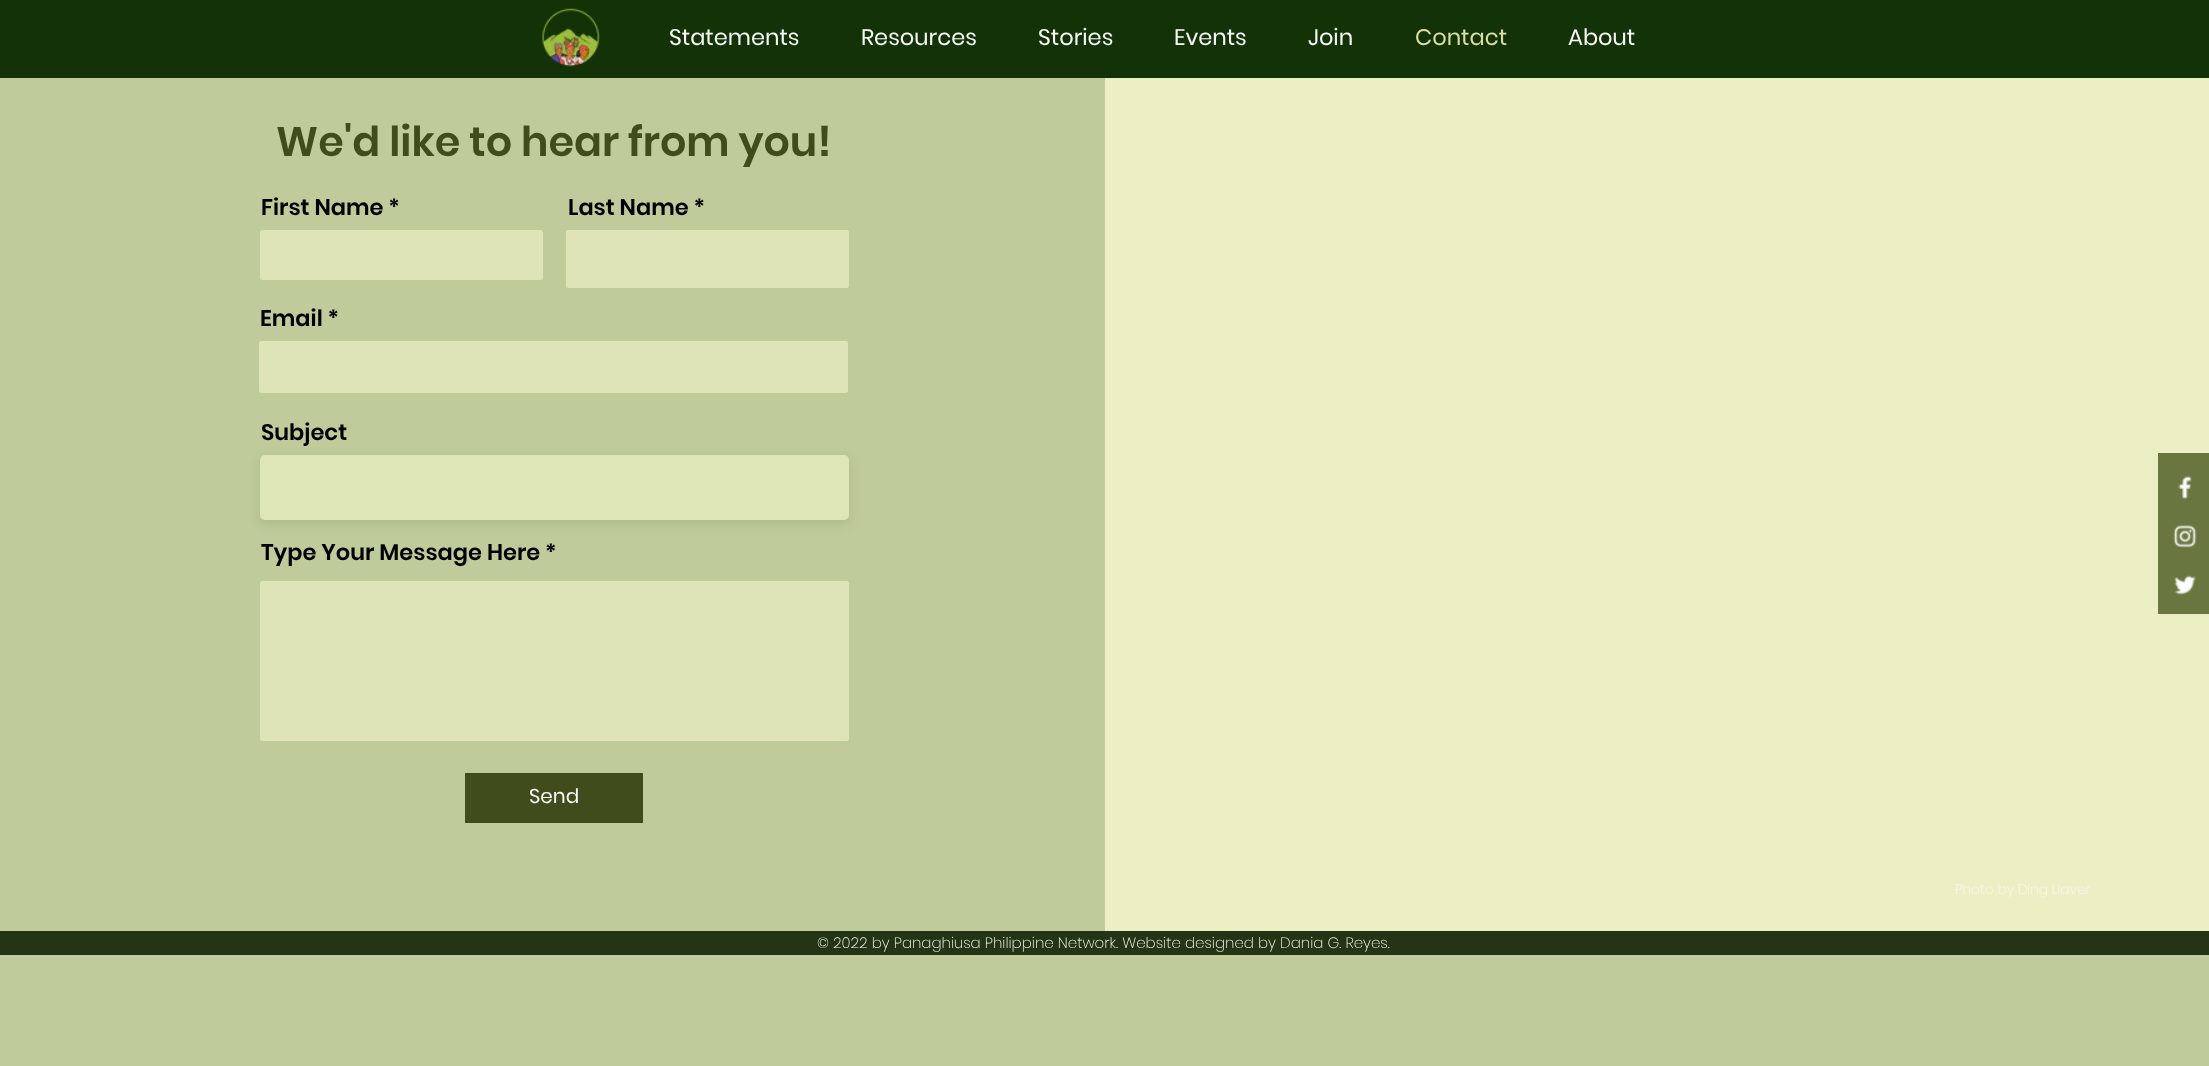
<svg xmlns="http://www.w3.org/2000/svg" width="2209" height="1066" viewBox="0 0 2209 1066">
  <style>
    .t1 { font: 22.5px Poppins; fill: #f6f9f5; }
    .t2 { font: 22.5px Poppins; fill: #d9dea2; }
    .t3 { font: 600 41.25px Poppins; fill: #404c1c; }
    .t4 { font: 600 22.5px Poppins; fill: #000; }
    .t5 { font: 20px Poppins; fill: #f6f9f5; }
    .t6 { font: 200 13.75px Poppins; fill: #f6f9f5; }
    .t7 { font: 200 15px Poppins; fill: #f6f9f5; }
  </style>
  <defs>
    <clipPath id="clip1"><path d="M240 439H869V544H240ZM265 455H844C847 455 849 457 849 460V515C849 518 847 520 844 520H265C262 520 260 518 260 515V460C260 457 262 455 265 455Z" clip-rule="evenodd"/></clipPath>
  </defs>
  <rect width="100%" height="100%" fill="#c0cb9b"/>
  <rect x="0" y="0" width="2209" height="78" fill="#133208"/>
  <image x="542" y="8" width="58" height="59" href="images/1.png"/>
  <text x="669" y="45" class="t1">Statements</text>
  <text x="861" y="45" class="t1">Resources</text>
  <text x="1038" y="45" class="t1">Stories</text>
  <text x="1174" y="45" class="t1">Events</text>
  <text x="1308" y="45" class="t1">Join</text>
  <text x="1415" y="45" class="t2">Contact</text>
  <text x="1568" y="45" class="t1">About</text>
  <text x="276" y="156" class="t3">We'd like to hear from you!</text>
  <text x="261" y="215" class="t4">First Name *</text>
  <rect x="260" y="230" width="283" height="50" rx="2.5" fill="#dee4b7"/>
  <text x="568" y="215" class="t4">Last Name *</text>
  <rect x="566" y="230" width="283" height="58" rx="2.5" fill="#dee4b7"/>
  <text x="260" y="326" class="t4">Email *</text>
  <rect x="259" y="341" width="589" height="52" rx="2.5" fill="#dee4b7"/>
  <text x="261" y="440" class="t4">Subject</text>
  <g clip-path="url(#clip1)">
    <rect x="259" y="458" width="591" height="67" rx="6" fill="#00000014" filter="blur(6px)"/>
  </g>
  <rect x="260" y="455" width="589" height="65" rx="5" fill="#ebefc3b3"/>
  <text x="261" y="560" class="t4">Type Your Message Here *</text>
  <rect x="260" y="581" width="589" height="160" rx="2.5" fill="#dee4b7"/>
  <rect x="465" y="773" width="178" height="50" fill="#404c1c"/>
  <text x="529" y="803" class="t5">Send</text>
  <rect x="1105" y="78" width="1104" height="853" fill="#ebefc3"/>
  <text x="1955" y="894" class="t6">Photo by Ding Llaver</text>
  <rect x="2158" y="453" width="51" height="161" fill="#69763f"/>
  <image x="2178" y="475" width="14" height="25" href="images/2.png"/>
  <image x="2173" y="524" width="24" height="24" href="images/3.png"/>
  <image x="2174" y="575" width="22" height="20" href="images/4.png"/>
  <rect x="0" y="931" width="2209" height="24" fill="#243414"/>
  <text x="817" y="948" class="t7">© 2022 by Panaghiusa Philippine Network. Website designed by Dania G. Reyes.</text>
</svg>
